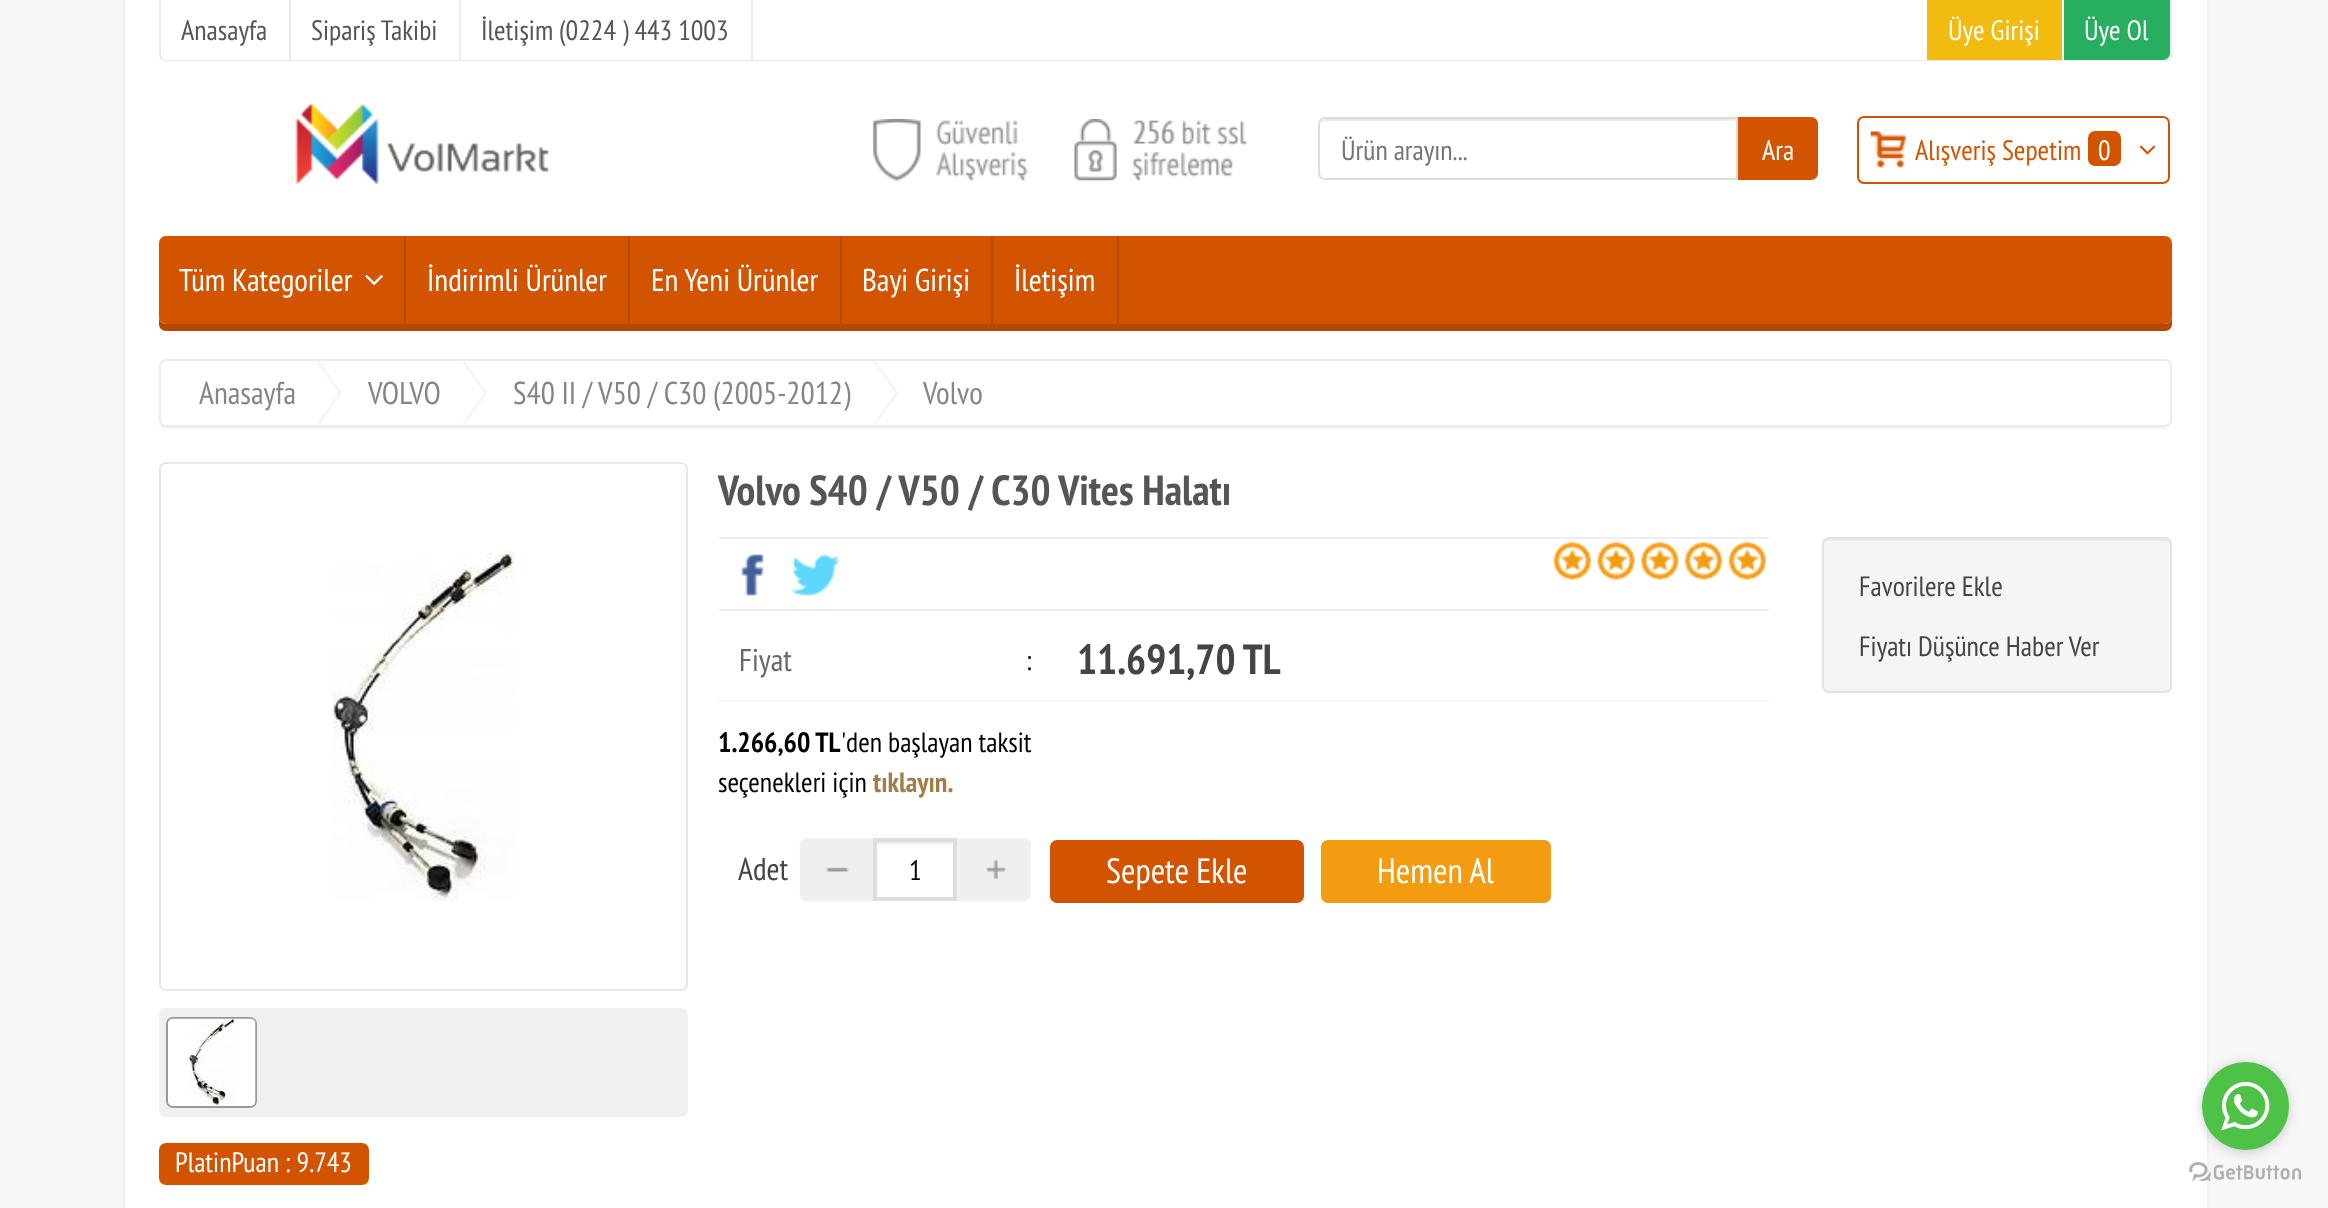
<svg xmlns="http://www.w3.org/2000/svg" width="2328" height="1208" viewBox="0 0 2328 1208">
  <style>
    .t1 { font: 28px PT Sans Narrow; fill: #555; }
    .t2 { font: 28px PT Sans Narrow; fill: #fff; }
    .t3 { font: 28px PT Sans Narrow; fill: #757575; }
    .t4 { font: 28px PT Sans Narrow; fill: #d35400; }
    .t5 { font: 31.5px PT Sans Narrow; fill: #fff; }
    .t6 { font: 31.5px PT Sans Narrow; fill: #858585; }
    .t7 { font: bold 42px PT Sans Narrow; fill: #555; }
    .t8 { font: 28px PT Sans Narrow; fill: #444; }
    .t9 { font: 31.5px PT Sans Narrow; fill: #686868; }
    .t10 { font: 28px PT Sans Narrow; fill: #000; }
    .t11 { font: bold 42px PT Sans Narrow; fill: #444; }
    .t12 { font: bold 28px PT Sans Narrow; fill: #000; }
    .t13 { font: bold 28px PT Sans Narrow; fill: #a07d49; }
    .t14 { font: 31.5px PT Sans Narrow; fill: #444; }
    .t15 { font: 35px PT Sans Narrow; fill: #fff; }
  </style>
  <defs>
    <clipPath id="clip1"><path d="M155 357H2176V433H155ZM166 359H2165C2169 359 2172 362 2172 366V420C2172 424 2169 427 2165 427H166C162 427 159 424 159 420V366C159 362 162 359 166 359Z" clip-rule="evenodd"/></clipPath>
  </defs>
  <rect width="100%" height="100%" fill="#f7f7f7"/>
  <rect x="125" y="0" width="2082" height="1208" fill="#fff"/>
  <rect x="2207" y="0" width="2" height="1208" fill="#f0f0f0"/>
  <rect x="123" y="0" width="2" height="1208" fill="#f0f0f0"/>
  <path d="M159 0H2172V54C2172 58 2169 61 2165 61H166C162 61 159 58 159 54ZM161 0H2170V54C2170 57 2168 60 2165 60H166C163 60 161 57 161 54Z" fill="#ebebeb" fill-rule="evenodd"/>
  <rect x="289" y="0" width="2" height="60" fill="#ebebeb"/>
  <text x="181" y="40" class="t1">Anasayfa</text>
  <rect x="459" y="0" width="2" height="60" fill="#ebebeb"/>
  <text x="311" y="40" class="t1">Sipariş Takibi</text>
  <rect x="751" y="0" width="2" height="60" fill="#ebebeb"/>
  <text x="481" y="40" class="t1">İletişim (0224 ) 443 1003</text>
  <rect x="1927" y="0" width="135" height="60" fill="#f1bb0f"/>
  <text x="1948" y="40" class="t2">Üye Girişi</text>
  <path d="M2062 0H2170V53C2170 57 2167 60 2163 60H2062Z" fill="#27ae60"/>
  <rect x="2062" y="0" width="2" height="60" fill="#fff"/>
  <text x="2084" y="40" class="t2">Üye Ol</text>
  <image x="295" y="103" width="255" height="82" href="images/1.png"/>
  <image x="872" y="119" width="375" height="62" href="images/2.png"/>
  <path d="M1325 121H1736V119H1325C1321 119 1320 123 1320 126C1320 123 1322 121 1325 121Z" fill="#ececec"/>
  <path d="M1325 118H1737V179H1325C1321.5 179 1319 176.5 1319 173V124C1319 120.5 1321.5 118 1325 118Z" fill="none" stroke="#ddd" stroke-width="2"/>
  <text x="1341" y="160" class="t3">Ürün arayın...</text>
  <path d="M1738 117H1811C1815 117 1818 120 1818 124V173C1818 177 1815 180 1811 180H1738Z" fill="#d35400"/>
  <text x="1762" y="160" class="t2">Ara</text>
  <image x="1870" y="131" width="36" height="37" href="images/3.png"/>
  <rect x="1858" y="117" width="311" height="66" rx="6" fill="none" stroke="#d35400" stroke-width="2"/>
  <text x="1915" y="160" class="t4">Alışveriş Sepetim</text>
  <rect x="2088" y="131" width="33" height="35" rx="7" fill="#d35400"/>
  <text x="2098" y="160" class="t2">0</text>
  <image x="2139" y="145" width="17" height="10" href="images/4.png"/>
  <rect x="159" y="236" width="2013" height="88" rx="7" fill="#d35400"/>
  <path d="M159 248V324C159 328 162 331 166 331H2165C2169 331 2172 328 2172 324V248V317C2172 321 2169 324 2165 324H166C162 324 159 321 159 317Z" fill="#b44800"/>
  <rect x="404" y="236" width="2" height="88" fill="#b44800"/>
  <text x="179" y="291" class="t5">Tüm Kategoriler</text>
  <image x="365" y="275" width="18" height="11" href="images/5.png"/>
  <rect x="628" y="236" width="2" height="88" fill="#b44800"/>
  <text x="427" y="291" class="t5">İndirimli Ürünler</text>
  <rect x="840" y="236" width="2" height="88" fill="#b44800"/>
  <text x="651" y="291" class="t5">En Yeni Ürünler</text>
  <rect x="991" y="236" width="2" height="88" fill="#b44800"/>
  <text x="862" y="291" class="t5">Bayi Girişi</text>
  <rect x="1117" y="236" width="2" height="88" fill="#b44800"/>
  <text x="1014" y="291" class="t5">İletişim</text>
  <g clip-path="url(#clip1)">
    <rect x="159" y="361" width="2013" height="68" rx="7" fill="#0000000d" filter="blur(1px)"/>
  </g>
  <rect x="160" y="360" width="2011" height="66" rx="6" fill="none" stroke="#ececec" stroke-width="2"/>
  <text x="199" y="404" class="t6">Anasayfa</text>
  <image x="317" y="361" width="24" height="63" href="images/6.png"/>
  <text x="368" y="404" class="t6">VOLVO</text>
  <image x="462" y="361" width="25" height="63" href="images/7.png"/>
  <text x="513" y="404" class="t6">S40 II / V50 / C30 (2005-2012)</text>
  <image x="873" y="361" width="25" height="63" href="images/8.png"/>
  <text x="923" y="404" class="t6">Volvo</text>
  <text x="718" y="505" class="t7">Volvo S40 / V50 / C30 Vites Halatı</text>
  <rect x="719" y="537" width="1050" height="2" fill="#eee"/>
  <rect x="719" y="609" width="1050" height="2" fill="#eee"/>
  <image x="741" y="554" width="23" height="42" href="images/9.png"/>
  <image x="791" y="554" width="50" height="42" href="images/10.png"/>
  <image x="1553" y="542" width="214" height="38" href="images/11.png"/>
  <rect x="1822" y="537" width="350" height="156" rx="7" fill="#f5f5f5"/>
  <path d="M1829 541H2165C2168 541 2170 543 2170 546C2170 543 2169 539 2165 539H1829C1825 539 1824 543 1824 546C1824 543 1826 541 1829 541Z" fill="#e9e9e9"/>
  <rect x="1823" y="538" width="348" height="154" rx="6" fill="none" stroke="#e3e3e3" stroke-width="2"/>
  <text x="1859" y="596" class="t8">Favorilere Ekle</text>
  <text x="1859" y="656" class="t8">Fiyatı Düşünce Haber Ver</text>
  <text x="739" y="671" class="t9">Fiyat</text>
  <text x="1026" y="670" class="t10">:</text>
  <rect x="718" y="700" width="1051" height="2" fill="#f7f7f7"/>
  <text x="1077" y="674" class="t11">11.691,70 TL</text>
  <text x="718" y="752" class="t12">1.266,60 TL</text>
  <text x="841" y="752" class="t10">'den başlayan taksit</text>
  <text x="718" y="792" class="t10">seçenekleri için</text>
  <text x="873" y="792" class="t13">tıklayın.</text>
  <text x="738" y="880" class="t14">Adet</text>
  <image x="799" y="838" width="75" height="64" href="images/12.png"/>
  <rect x="877" y="842" width="77" height="2" fill="#ececec"/>
  <rect x="875" y="840" width="80" height="59" fill="none" stroke="#ddd" stroke-width="4"/>
  <text x="909" y="880" class="t10">1</text>
  <image x="957" y="838" width="74" height="64" href="images/13.png"/>
  <rect x="1050" y="840" width="254" height="63" rx="7" fill="#d35400"/>
  <text x="1106" y="883" class="t15">Sepete Ekle</text>
  <rect x="1321" y="840" width="230" height="63" rx="7" fill="#f39c12"/>
  <text x="1377" y="883" class="t15">Hemen Al</text>
  <rect x="160" y="463" width="527" height="527" rx="6" fill="none" stroke="#e7e7e7" stroke-width="2"/>
  <image x="332" y="551" width="183" height="351" href="images/14.png"/>
  <rect x="159" y="1008" width="529" height="109" rx="7" fill="#f0f0f0"/>
  <rect x="167" y="1018" width="89" height="89" rx="6" fill="none" stroke="#999" stroke-width="2"/>
  <image x="168" y="1018" width="88" height="88" href="images/15.png"/>
  <rect x="159" y="1143" width="210" height="42" rx="7" fill="#d35400"/>
  <text x="175" y="1172" class="t2">PlatinPuan : 9.743</text>
  <image x="2189" y="1162" width="112" height="19" href="images/17.png"/>
  <rect x="2202" y="1064" width="87" height="88" rx="43.5" fill="#88888866" filter="blur(6px)"/>
  <rect x="2202" y="1062" width="87" height="88" rx="43.5" fill="#4dc247"/>
  <image x="2221" y="1081" width="49" height="50" href="images/16.png"/>
</svg>
